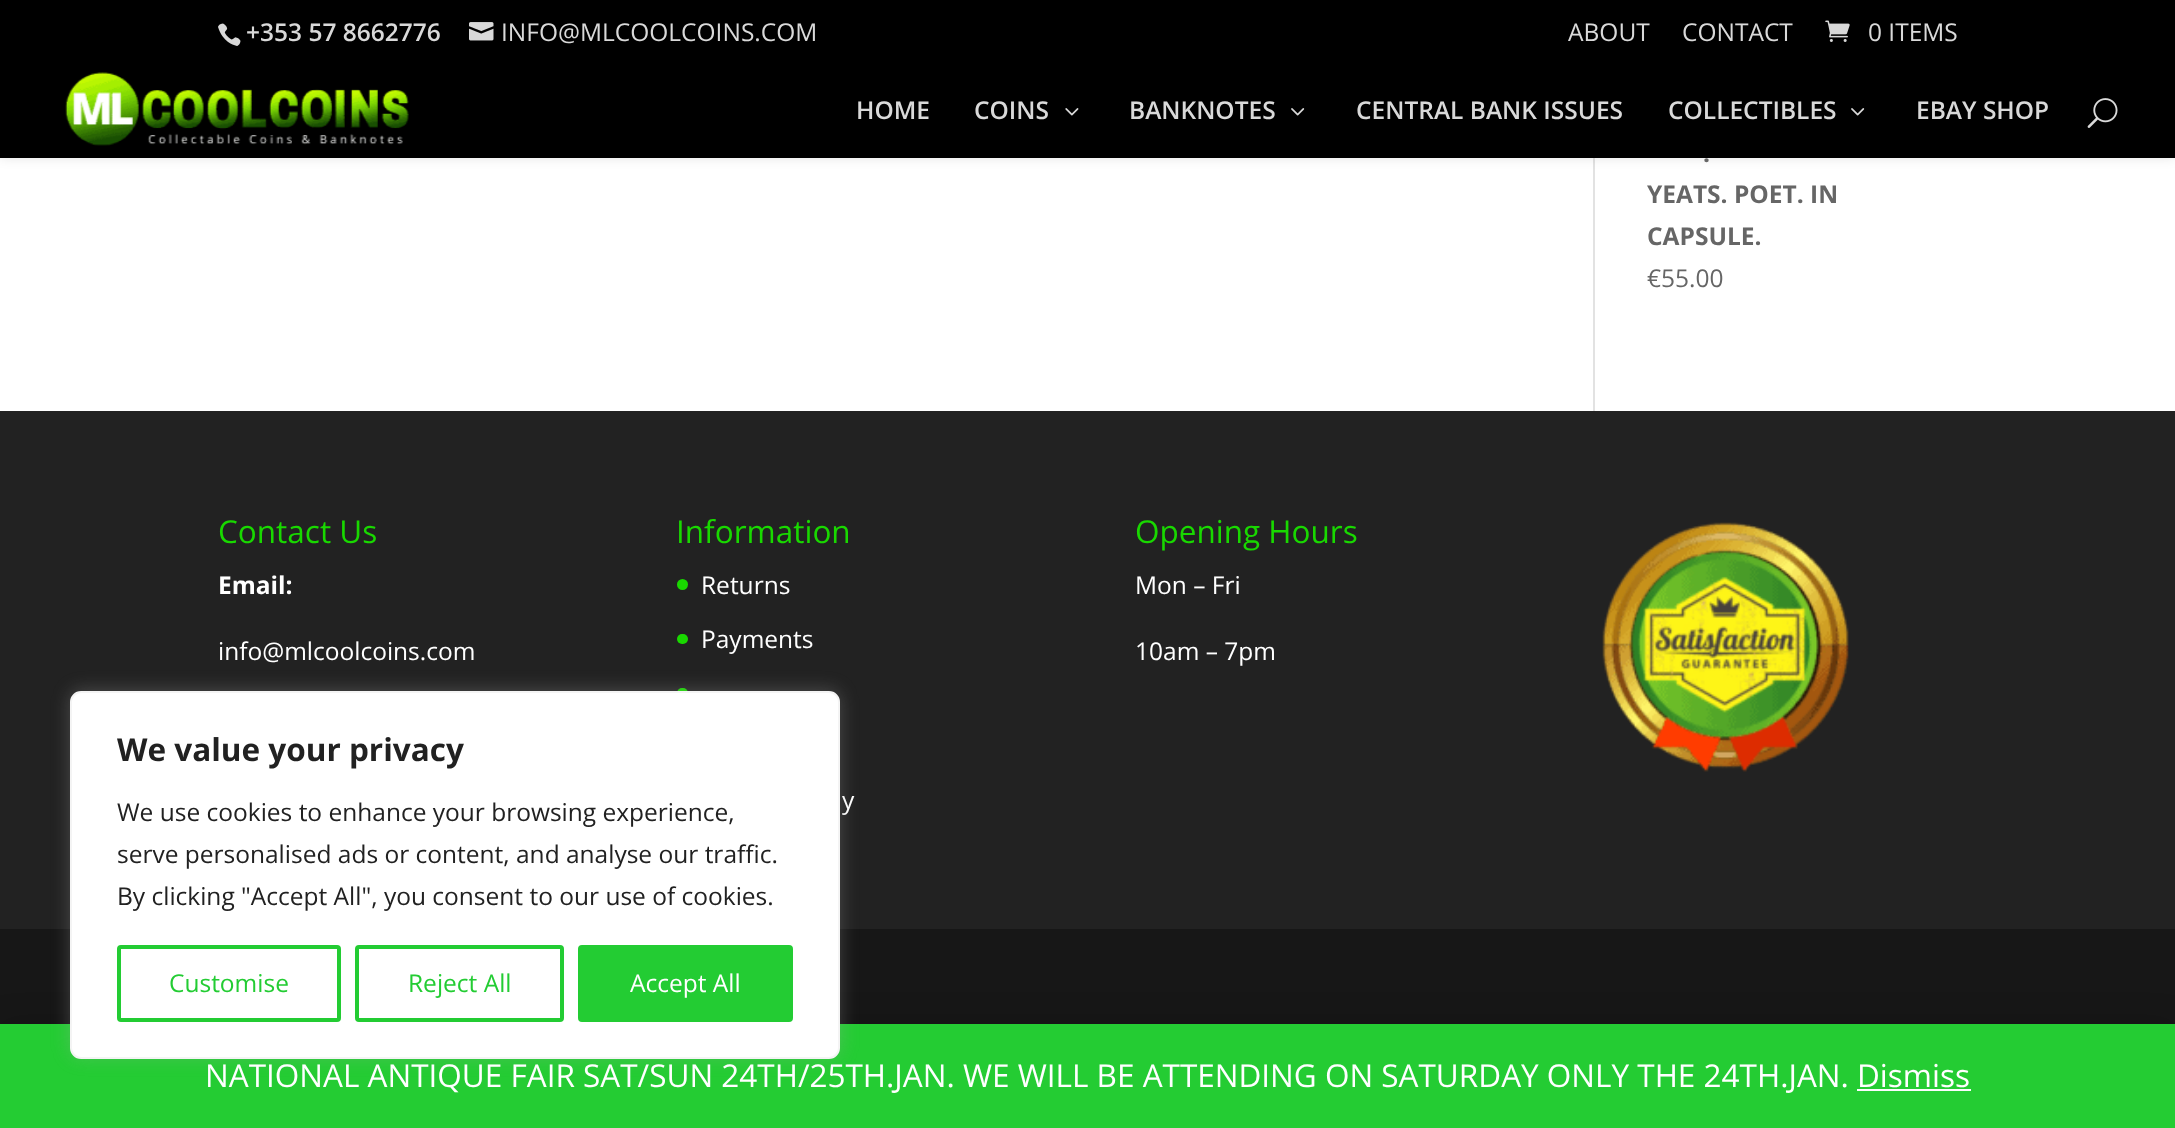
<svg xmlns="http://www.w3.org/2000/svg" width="2175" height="1128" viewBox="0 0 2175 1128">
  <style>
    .t1 { font: 600 24.5px Open Sans; fill: #d9d9d9; }
    .t2 { font: 24.5px Open Sans; fill: #d9d9d9; }
    .t3 { font: bold 24.5px Open Sans; fill: #666; }
    .t4 { font: 24.5px Open Sans; fill: #666; }
    .t5 { font: 31.5px Open Sans; fill: #19d800; }
    .t6 { font: bold 24.5px Open Sans; fill: #fff; }
    .t7 { font: 24.5px Open Sans; fill: #fff; }
    .t8 { font: bold 31.5px Open Sans; fill: #212121; }
    .t9 { font: 24.5px Open Sans; fill: #212121; }
    .t10 { font: 24.5px Open Sans; fill: #23cc33; }
    .t11 { font: 31.5px Open Sans; fill: #fff; }
  </style>
  <rect width="100%" height="100%" fill="#fff"/>
  <rect x="1593" y="158" width="2" height="253" fill="#e2e2e2"/>
  <rect x="0" y="63" width="2175" height="95" fill="#0000001a" filter="blur(6px)"/>
  <rect x="0" y="0" width="2175" height="158" fill="#000"/>
  <image x="218" y="23" width="23" height="23" href="images/1.png"/>
  <text x="246" y="41" class="t1">+353 57 8662776</text>
  <image x="469" y="22" width="25" height="19" href="images/2.png"/>
  <text x="501" y="41" class="t2">INFO@MLCOOLCOINS.COM</text>
  <text x="1568" y="41" class="t2">ABOUT</text>
  <text x="1682" y="41" class="t2">CONTACT</text>
  <image x="1825" y="20" width="25" height="22" href="images/3.png"/>
  <text x="1868" y="41" class="t2">0 ITEMS</text>
  <image x="65" y="72" width="344" height="74" href="images/4.png"/>
  <text x="856" y="119" class="t1">HOME</text>
  <text x="974" y="119" class="t1">COINS</text>
  <image x="1065" y="108" width="14" height="8" href="images/5.png"/>
  <text x="1129" y="119" class="t1">BANKNOTES</text>
  <image x="1291" y="108" width="14" height="8" href="images/6.png"/>
  <text x="1356" y="119" class="t1">CENTRAL BANK ISSUES</text>
  <text x="1668" y="119" class="t1">COLLECTIBLES</text>
  <image x="1851" y="108" width="14" height="8" href="images/6.png"/>
  <text x="1916" y="119" class="t1">EBAY SHOP</text>
  <image x="2087" y="98" width="31" height="30" href="images/7.png"/>
  <text x="1703" y="162" class="t3">.</text>
  <text x="1647" y="203" class="t3">YEATS. POET. IN</text>
  <text x="1647" y="245" class="t3">CAPSULE.</text>
  <text x="1647" y="287" class="t4">€55.00</text>
  <rect x="0" y="411" width="2175" height="518" fill="#222"/>
  <text x="218" y="543" class="t5">Contact Us</text>
  <text x="218" y="594" class="t6">Email:</text>
  <text x="218" y="660" class="t7">info@mlcoolcoins.com</text>
  <text x="676" y="543" class="t5">Information</text>
  <circle cx="682.5" cy="584.5" r="5.5" fill="#19d800"/>
  <text x="701" y="594" class="t7">Returns</text>
  <rect x="677" y="634" width="11" height="10" rx="5" fill="#19d800"/>
  <text x="701" y="648" class="t7">Payments</text>
  <rect x="677" y="688" width="11" height="10" rx="5" fill="#19d800"/>
  <text x="842" y="809" class="t7">y</text>
  <text x="1135" y="543" class="t5">Opening Hours</text>
  <text x="1135" y="594" class="t7">Mon – Fri</text>
  <text x="1135" y="660" class="t7">10am – 7pm</text>
  <image x="1602" y="522" width="247" height="250" href="images/8.png"/>
  <rect x="0" y="929" width="2175" height="95" fill="#171717"/>
  <rect x="0" y="1026" width="2175" height="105" fill="#00000033" filter="blur(16px)"/>
  <rect x="0" y="1024" width="2175" height="104" fill="#24cc33"/>
  <rect x="70" y="690" width="770" height="367" rx="11" fill="#acabab4d" filter="blur(9px)"/>
  <rect x="71" y="692" width="768" height="366" rx="10" fill="#fff" stroke="#f4f4f4" stroke-width="2"/>
  <text x="117" y="761" class="t8">We value your privacy</text>
  <text x="117" y="821" class="t9">We use cookies to enhance your browsing experience,</text>
  <text x="117" y="863" class="t9">serve personalised ads or content, and analyse our traffic.</text>
  <text x="117" y="905" class="t9">By clicking "Accept All", you consent to our use of cookies.</text>
  <rect x="119" y="947" width="220" height="73" rx="2" fill="none" stroke="#23cc33" stroke-width="4"/>
  <text x="169" y="992" class="t10">Customise</text>
  <rect x="357" y="947" width="205" height="73" rx="2" fill="none" stroke="#23cc33" stroke-width="4"/>
  <text x="408" y="992" class="t10">Reject All</text>
  <rect x="580" y="947" width="211" height="73" rx="2" fill="#23cc33" stroke="#23cc33" stroke-width="4"/>
  <text x="630" y="992" class="t7">Accept All</text>
  <text x="205" y="1087" class="t11">NATIONAL ANTIQUE FAIR SAT/SUN 24TH/25TH.JAN. WE WILL BE ATTENDING ON SATURDAY ONLY THE 24TH.JAN. Dismiss</text>
  <rect x="1857" y="1089" width="114" height="2" fill="#fcfbfe"/>
</svg>
